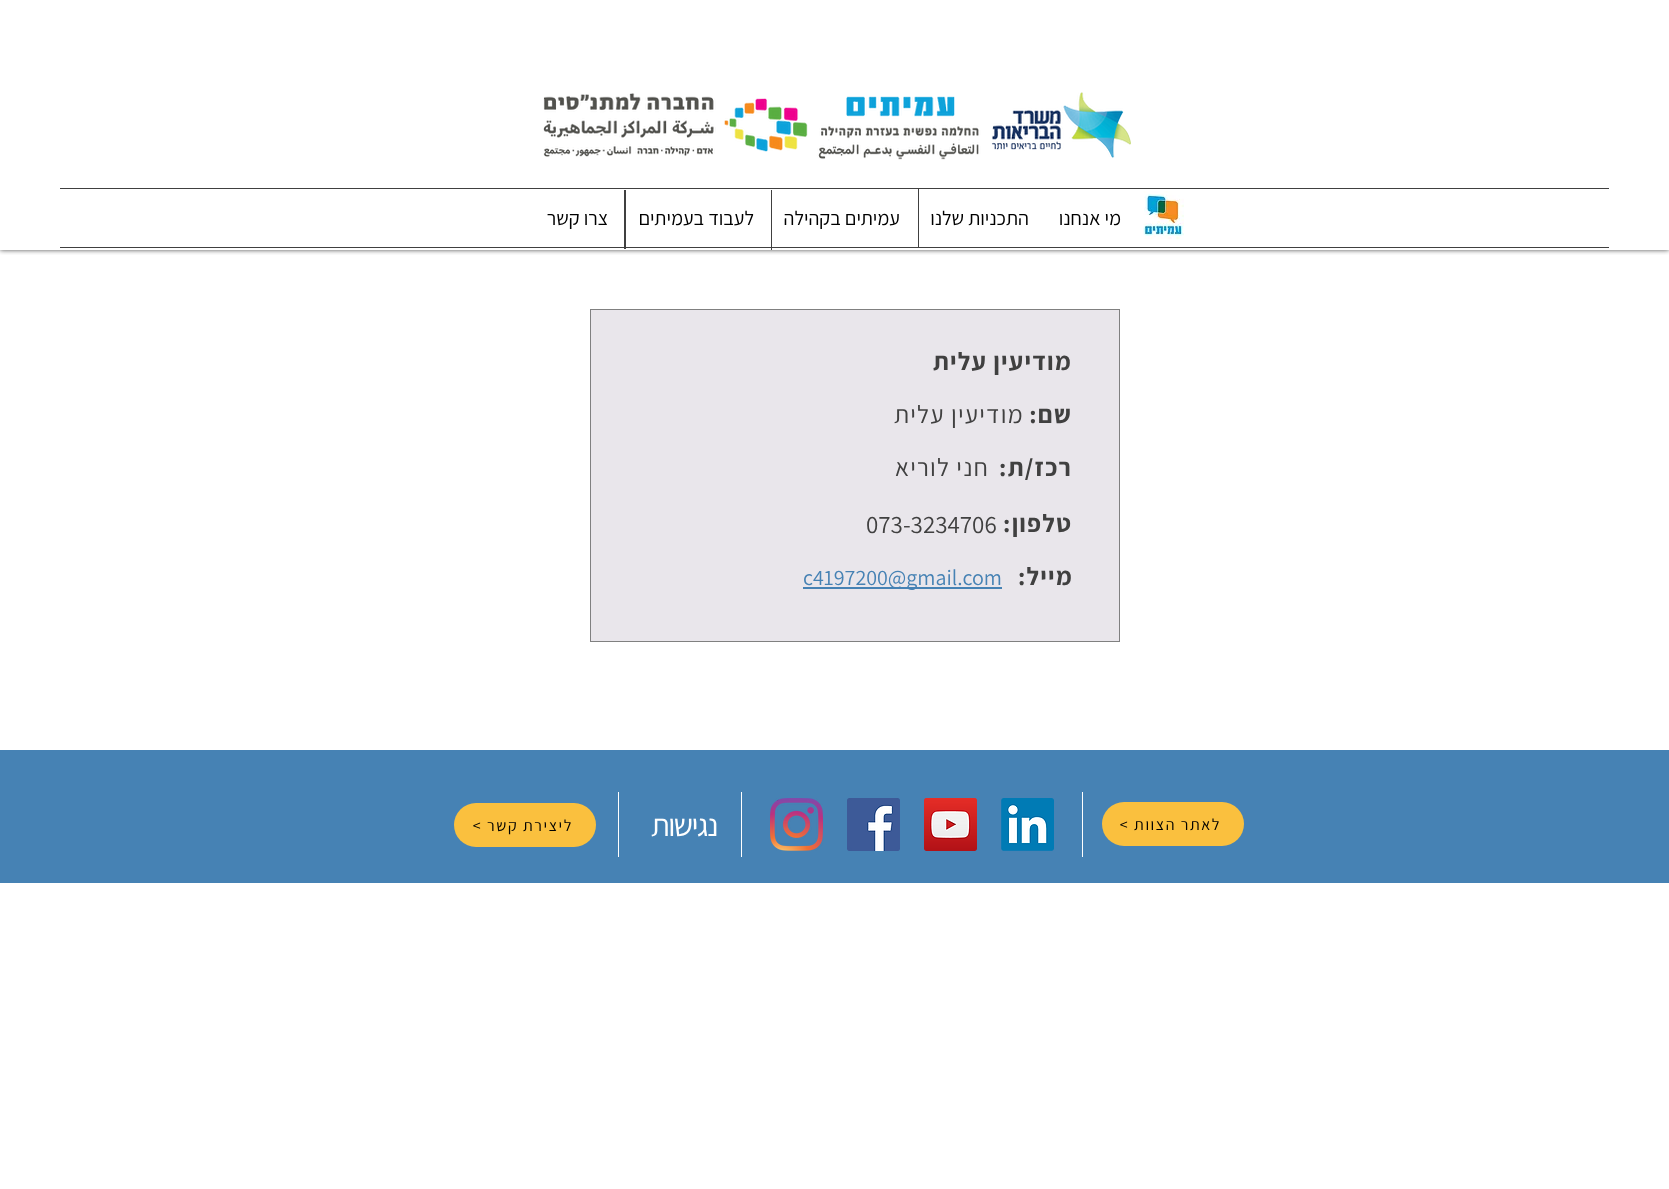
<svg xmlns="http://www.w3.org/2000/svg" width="1669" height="1189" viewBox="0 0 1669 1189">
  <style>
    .t1 { font: 20px Assistant; direction: rtl; fill: #000; }
    .t2 { font: bold 25px Assistant; letter-spacing: 1.25px; direction: rtl; fill: #404040; }
    .t3 { font: 25px Assistant; letter-spacing: 1.25px; direction: rtl; fill: #404040; }
    .t4 { font: 25px Assistant; fill: #404040; }
    .t5 { font: 22px Assistant; fill: #4682b4; }
    .t6 { font: 16px Assistant; letter-spacing: 1.6px; direction: rtl; fill: #000; }
    .t7 { font: 31px Assistant; letter-spacing: -1.5px; direction: rtl; fill: #fff; }
  </style>
  <defs>
    <clipPath id="clip1"><rect x="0" y="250" width="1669" height="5"/></clipPath>
  </defs>
  <rect width="100%" height="100%" fill="#fff"/>
  <g clip-path="url(#clip1)">
    <rect x="0" y="0" width="1669" height="250" fill="#000000b3" filter="blur(2.5px)"/>
  </g>
  <image x="543" y="92" width="588" height="68" href="images/1.png"/>
  <image x="1143" y="191" width="41" height="49" href="images/2.png"/>
  <rect x="60" y="188" width="1549" height="1" fill="#404040"/>
  <rect x="60" y="247" width="1549" height="1" fill="#404040"/>
  <rect x="918" y="188" width="1" height="60" fill="#404040"/>
  <rect x="771" y="190" width="1" height="60" fill="#404040"/>
  <rect x="624" y="190" width="2" height="59" fill="#404040"/>
  <text x="1121" y="225" class="t1">מי אנחנו</text>
  <text x="1029" y="225" class="t1">התכניות שלנו</text>
  <text x="900" y="225" class="t1">עמיתים בקהילה</text>
  <text x="754" y="225" class="t1">לעבוד בעמיתים</text>
  <text x="608" y="225" class="t1">צרו קשר</text>
  <rect x="590.5" y="309.5" width="529" height="332" fill="#e9e6eb" stroke="#808080"/>
  <text x="1072" y="370" class="t2">מודיעין עלית</text>
  <text x="1072" y="423" class="t2">שם:</text>
  <text x="1024" y="423" class="t3">מודיעין עלית</text>
  <text x="1072" y="476" class="t2">רכז/ת:</text>
  <text x="989" y="476" class="t3">חני לוריא</text>
  <text x="1072" y="532" class="t2">טלפון:</text>
  <text x="866" y="533" class="t4">073-3234706</text>
  <text x="1073" y="585" class="t2">מייל:</text>
  <rect x="803" y="587" width="199" height="2" fill="#4682b4"/>
  <text x="803" y="585" class="t5">c4197200@gmail.com</text>
  <rect x="0" y="750" width="1669" height="133" fill="#4682b4"/>
  <rect x="1102" y="802" width="142" height="44" rx="22" fill="#fac03e"/>
  <text x="1221" y="830" class="t6">לאתר הצוות &gt;</text>
  <rect x="1082" y="792" width="1" height="65" fill="#fff"/>
  <image x="1001" y="798" width="53" height="53" href="images/3.png"/>
  <image x="924" y="798" width="53" height="53" href="images/4.png"/>
  <image x="847" y="798" width="53" height="53" href="images/5.png"/>
  <image x="770" y="798" width="53" height="53" href="images/6.png"/>
  <rect x="741" y="792" width="1" height="65" fill="#fff"/>
  <text x="717" y="836" class="t7">נגישות</text>
  <rect x="618" y="792" width="1" height="65" fill="#fff"/>
  <rect x="454" y="803" width="142" height="44" rx="22" fill="#fac03e"/>
  <text x="573" y="831" class="t6">ליצירת קשר &gt;</text>
</svg>
